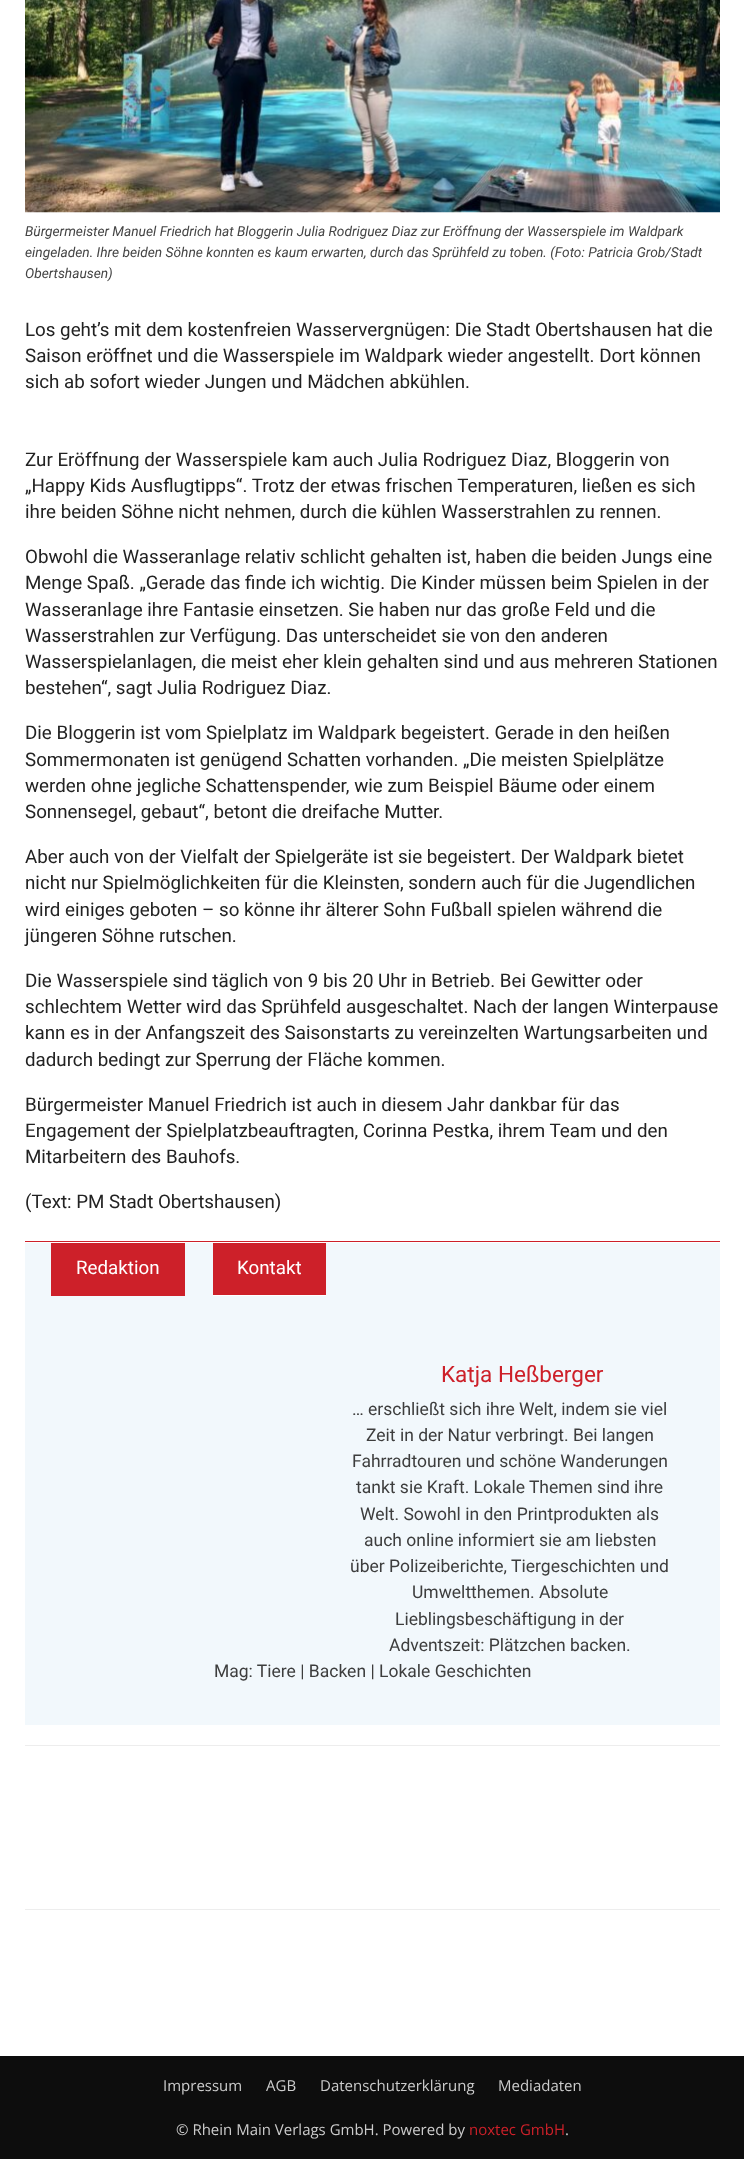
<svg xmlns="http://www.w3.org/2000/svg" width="744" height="2159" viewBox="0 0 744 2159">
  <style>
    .t1 { font: italic 13.75px Roboto; fill: #444; }
    .t2 { font: 18.75px Roboto; fill: #222; }
    .t3 { font: 18.75px Roboto; fill: #fff; }
    .t4 { font: 22.5px Roboto; fill: #cd2029; }
    .t5 { font: 17.5px Roboto; fill: #3d3d3d; }
    .t6 { font: 15px Open Sans; fill: #ccc; }
    .t7 { font: 15px Open Sans; fill: #cd2029; }
  </style>
  <rect width="100%" height="100%" fill="#fff"/>
  <image x="25" y="0" width="695" height="213" href="images/1.png"/>
  <text x="25" y="236" class="t1">Bürgermeister Manuel Friedrich hat Bloggerin Julia Rodriguez Diaz zur Eröffnung der Wasserspiele im Waldpark</text>
  <text x="25" y="257" class="t1">eingeladen. Ihre beiden Söhne konnten es kaum erwarten, durch das Sprühfeld zu toben. (Foto: Patricia Grob/Stadt</text>
  <text x="25" y="278" class="t1">Obertshausen)</text>
  <text x="25" y="336" class="t2">Los geht’s mit dem kostenfreien Wasservergnügen: Die Stadt Obertshausen hat die</text>
  <text x="25" y="362" class="t2">Saison eröffnet und die Wasserspiele im Waldpark wieder angestellt. Dort können</text>
  <text x="25" y="388" class="t2">sich ab sofort wieder Jungen und Mädchen abkühlen.</text>
  <text x="25" y="466" class="t2">Zur Eröffnung der Wasserspiele kam auch Julia Rodriguez Diaz, Bloggerin von</text>
  <text x="25" y="492" class="t2">„Happy Kids Ausflugtipps“. Trotz der etwas frischen Temperaturen, ließen es sich</text>
  <text x="25" y="518" class="t2">ihre beiden Söhne nicht nehmen, durch die kühlen Wasserstrahlen zu rennen.</text>
  <text x="25" y="563" class="t2">Obwohl die Wasseranlage relativ schlicht gehalten ist, haben die beiden Jungs eine</text>
  <text x="25" y="589" class="t2">Menge Spaß. „Gerade das finde ich wichtig. Die Kinder müssen beim Spielen in der</text>
  <text x="25" y="616" class="t2">Wasseranlage ihre Fantasie einsetzen. Sie haben nur das große Feld und die</text>
  <text x="25" y="642" class="t2">Wasserstrahlen zur Verfügung. Das unterscheidet sie von den anderen</text>
  <text x="25" y="668" class="t2">Wasserspielanlagen, die meist eher klein gehalten sind und aus mehreren Stationen</text>
  <text x="25" y="694" class="t2">bestehen“, sagt Julia Rodriguez Diaz.</text>
  <text x="25" y="739" class="t2">Die Bloggerin ist vom Spielplatz im Waldpark begeistert. Gerade in den heißen</text>
  <text x="25" y="766" class="t2">Sommermonaten ist genügend Schatten vorhanden. „Die meisten Spielplätze</text>
  <text x="25" y="792" class="t2">werden ohne jegliche Schattenspender, wie zum Beispiel Bäume oder einem</text>
  <text x="25" y="818" class="t2">Sonnensegel, gebaut“, betont die dreifache Mutter.</text>
  <text x="25" y="863" class="t2">Aber auch von der Vielfalt der Spielgeräte ist sie begeistert. Der Waldpark bietet</text>
  <text x="25" y="889" class="t2">nicht nur Spielmöglichkeiten für die Kleinsten, sondern auch für die Jugendlichen</text>
  <text x="25" y="916" class="t2">wird einiges geboten – so könne ihr älterer Sohn Fußball spielen während die</text>
  <text x="25" y="942" class="t2">jüngeren Söhne rutschen.</text>
  <text x="25" y="987" class="t2">Die Wasserspiele sind täglich von 9 bis 20 Uhr in Betrieb. Bei Gewitter oder</text>
  <text x="25" y="1013" class="t2">schlechtem Wetter wird das Sprühfeld ausgeschaltet. Nach der langen Winterpause</text>
  <text x="25" y="1039" class="t2">kann es in der Anfangszeit des Saisonstarts zu vereinzelten Wartungsarbeiten und</text>
  <text x="25" y="1066" class="t2">dadurch bedingt zur Sperrung der Fläche kommen.</text>
  <text x="25" y="1111" class="t2">Bürgermeister Manuel Friedrich ist auch in diesem Jahr dankbar für das</text>
  <text x="25" y="1137" class="t2">Engagement der Spielplatzbeauftragten, Corinna Pestka, ihrem Team und den</text>
  <text x="25" y="1163" class="t2">Mitarbeitern des Bauhofs.</text>
  <text x="25" y="1208" class="t2">(Text: PM Stadt Obertshausen)</text>
  <rect x="25" y="1243" width="695" height="482" fill="#f2f8fc"/>
  <rect x="25" y="1241" width="695" height="1" fill="#cd2029"/>
  <rect x="51" y="1243" width="134" height="53" fill="#cd2029"/>
  <text x="76" y="1274" class="t3">Redaktion</text>
  <rect x="213" y="1243" width="113" height="52" fill="#cd2029"/>
  <rect x="213" y="1295" width="113" height="1" fill="#fff"/>
  <text x="237" y="1274" class="t3">Kontakt</text>
  <text x="441" y="1382" class="t4">Katja Heßberger</text>
  <text x="352" y="1415" class="t5">… erschließt sich ihre Welt, indem sie viel</text>
  <text x="366" y="1441" class="t5">Zeit in der Natur verbringt. Bei langen</text>
  <text x="352" y="1467" class="t5">Fahrradtouren und schöne Wanderungen</text>
  <text x="356" y="1493" class="t5">tankt sie Kraft. Lokale Themen sind ihre</text>
  <text x="360" y="1520" class="t5">Welt. Sowohl in den Printprodukten als</text>
  <text x="364" y="1546" class="t5">auch online informiert sie am liebsten</text>
  <text x="350" y="1572" class="t5">über Polizeiberichte, Tiergeschichten und</text>
  <text x="412" y="1598" class="t5">Umweltthemen. Absolute</text>
  <text x="395" y="1625" class="t5">Lieblingsbeschäftigung in der</text>
  <text x="389" y="1651" class="t5">Adventszeit: Plätzchen backen.</text>
  <text x="214" y="1677" class="t5">Mag: Tiere | Backen | Lokale Geschichten</text>
  <rect x="25" y="1745" width="695" height="1" fill="#ededed"/>
  <rect x="25" y="1909" width="695" height="1" fill="#ededed"/>
  <rect x="0" y="2056" width="744" height="103" fill="#0d0d0d"/>
  <text x="163" y="2091" class="t6">Impressum</text>
  <text x="266" y="2091" class="t6">AGB</text>
  <text x="320" y="2091" class="t6">Datenschutzerklärung</text>
  <text x="498" y="2091" class="t6">Mediadaten</text>
  <text x="176" y="2135" class="t6">© Rhein Main Verlags GmbH. Powered by</text>
  <text x="469" y="2135" class="t7">noxtec GmbH</text>
  <text x="565" y="2135" class="t6">.</text>
</svg>
